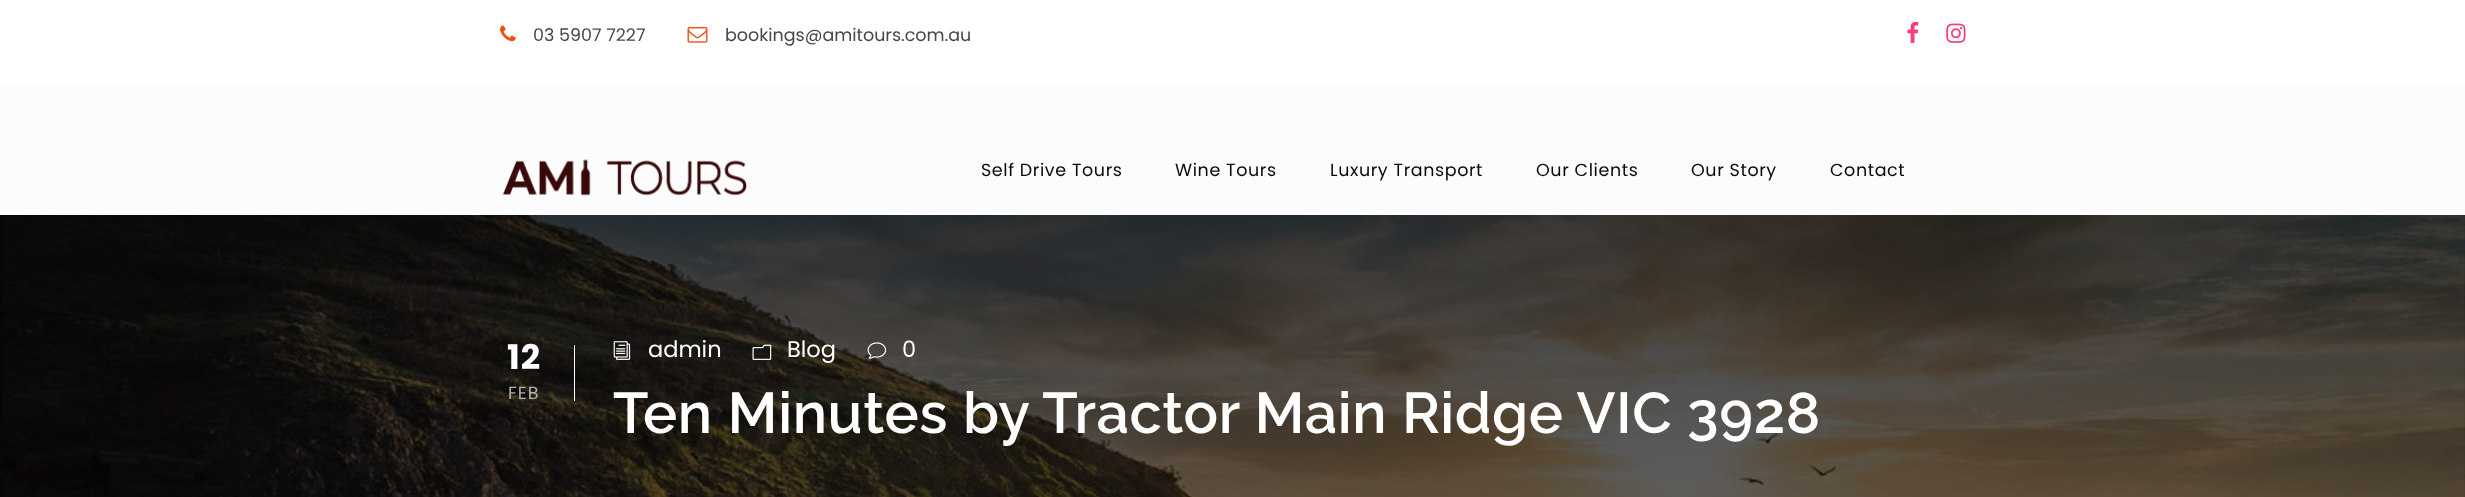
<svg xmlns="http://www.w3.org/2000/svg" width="2465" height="497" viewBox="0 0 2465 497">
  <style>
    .t1 { font: 17.5px Poppins; fill: #474747; }
    .t2 { font: 17.5px Poppins; letter-spacing: 0.6px; fill: #0a0a0a; }
    .t3 { font: bold 34px Poppins; letter-spacing: 1px; fill: #fff; }
    .t4 { font: 17.5px Poppins; letter-spacing: 1px; fill: #b1b1b1; }
    .t5 { font: 22.5px Poppins; fill: #fff; }
    .t6 { font: 600 57.5px Raleway; letter-spacing: 0.6px; fill: #fff; }
  </style>
  <rect width="100%" height="100%" fill="#fff"/>
  <image x="500" y="25" width="16" height="17" href="images/1.png"/>
  <text x="533" y="41" class="t1">03 5907 7227</text>
  <image x="687" y="26" width="21" height="17" href="images/2.png"/>
  <text x="725" y="41" class="t1">bookings@amitours.com.au</text>
  <image x="1907" y="22" width="12" height="21" href="images/3.png"/>
  <image x="1946" y="23" width="20" height="20" href="images/4.png"/>
  <rect x="0" y="84" width="2465" height="131" fill="#fcfcfc"/>
  <image x="503" y="159" width="244" height="37" href="images/5.png"/>
  <text x="981" y="176" class="t2">Self Drive Tours</text>
  <text x="1175" y="176" class="t2">Wine Tours</text>
  <text x="1330" y="176" class="t2">Luxury Transport</text>
  <text x="1536" y="176" class="t2">Our Clients</text>
  <text x="1691" y="176" class="t2">Our Story</text>
  <text x="1830" y="176" class="t2">Contact</text>
  <image x="0" y="215" width="2465" height="282" href="images/6.png"/>
  <rect x="574" y="345" width="1" height="56" fill="#fff"/>
  <text x="507" y="369" class="t3">12</text>
  <text x="508" y="399" class="t4">FEB</text>
  <image x="613" y="341" width="18" height="19" href="images/7.png"/>
  <text x="648" y="357" class="t5">admin</text>
  <image x="752" y="344" width="20" height="16" href="images/8.png"/>
  <text x="787" y="357" class="t5">Blog</text>
  <image x="867" y="342" width="20" height="17" href="images/9.png"/>
  <text x="902" y="357" class="t5">0</text>
  <text x="613" y="433" class="t6">Ten Minutes by Tractor Main Ridge VIC 3928</text>
</svg>
